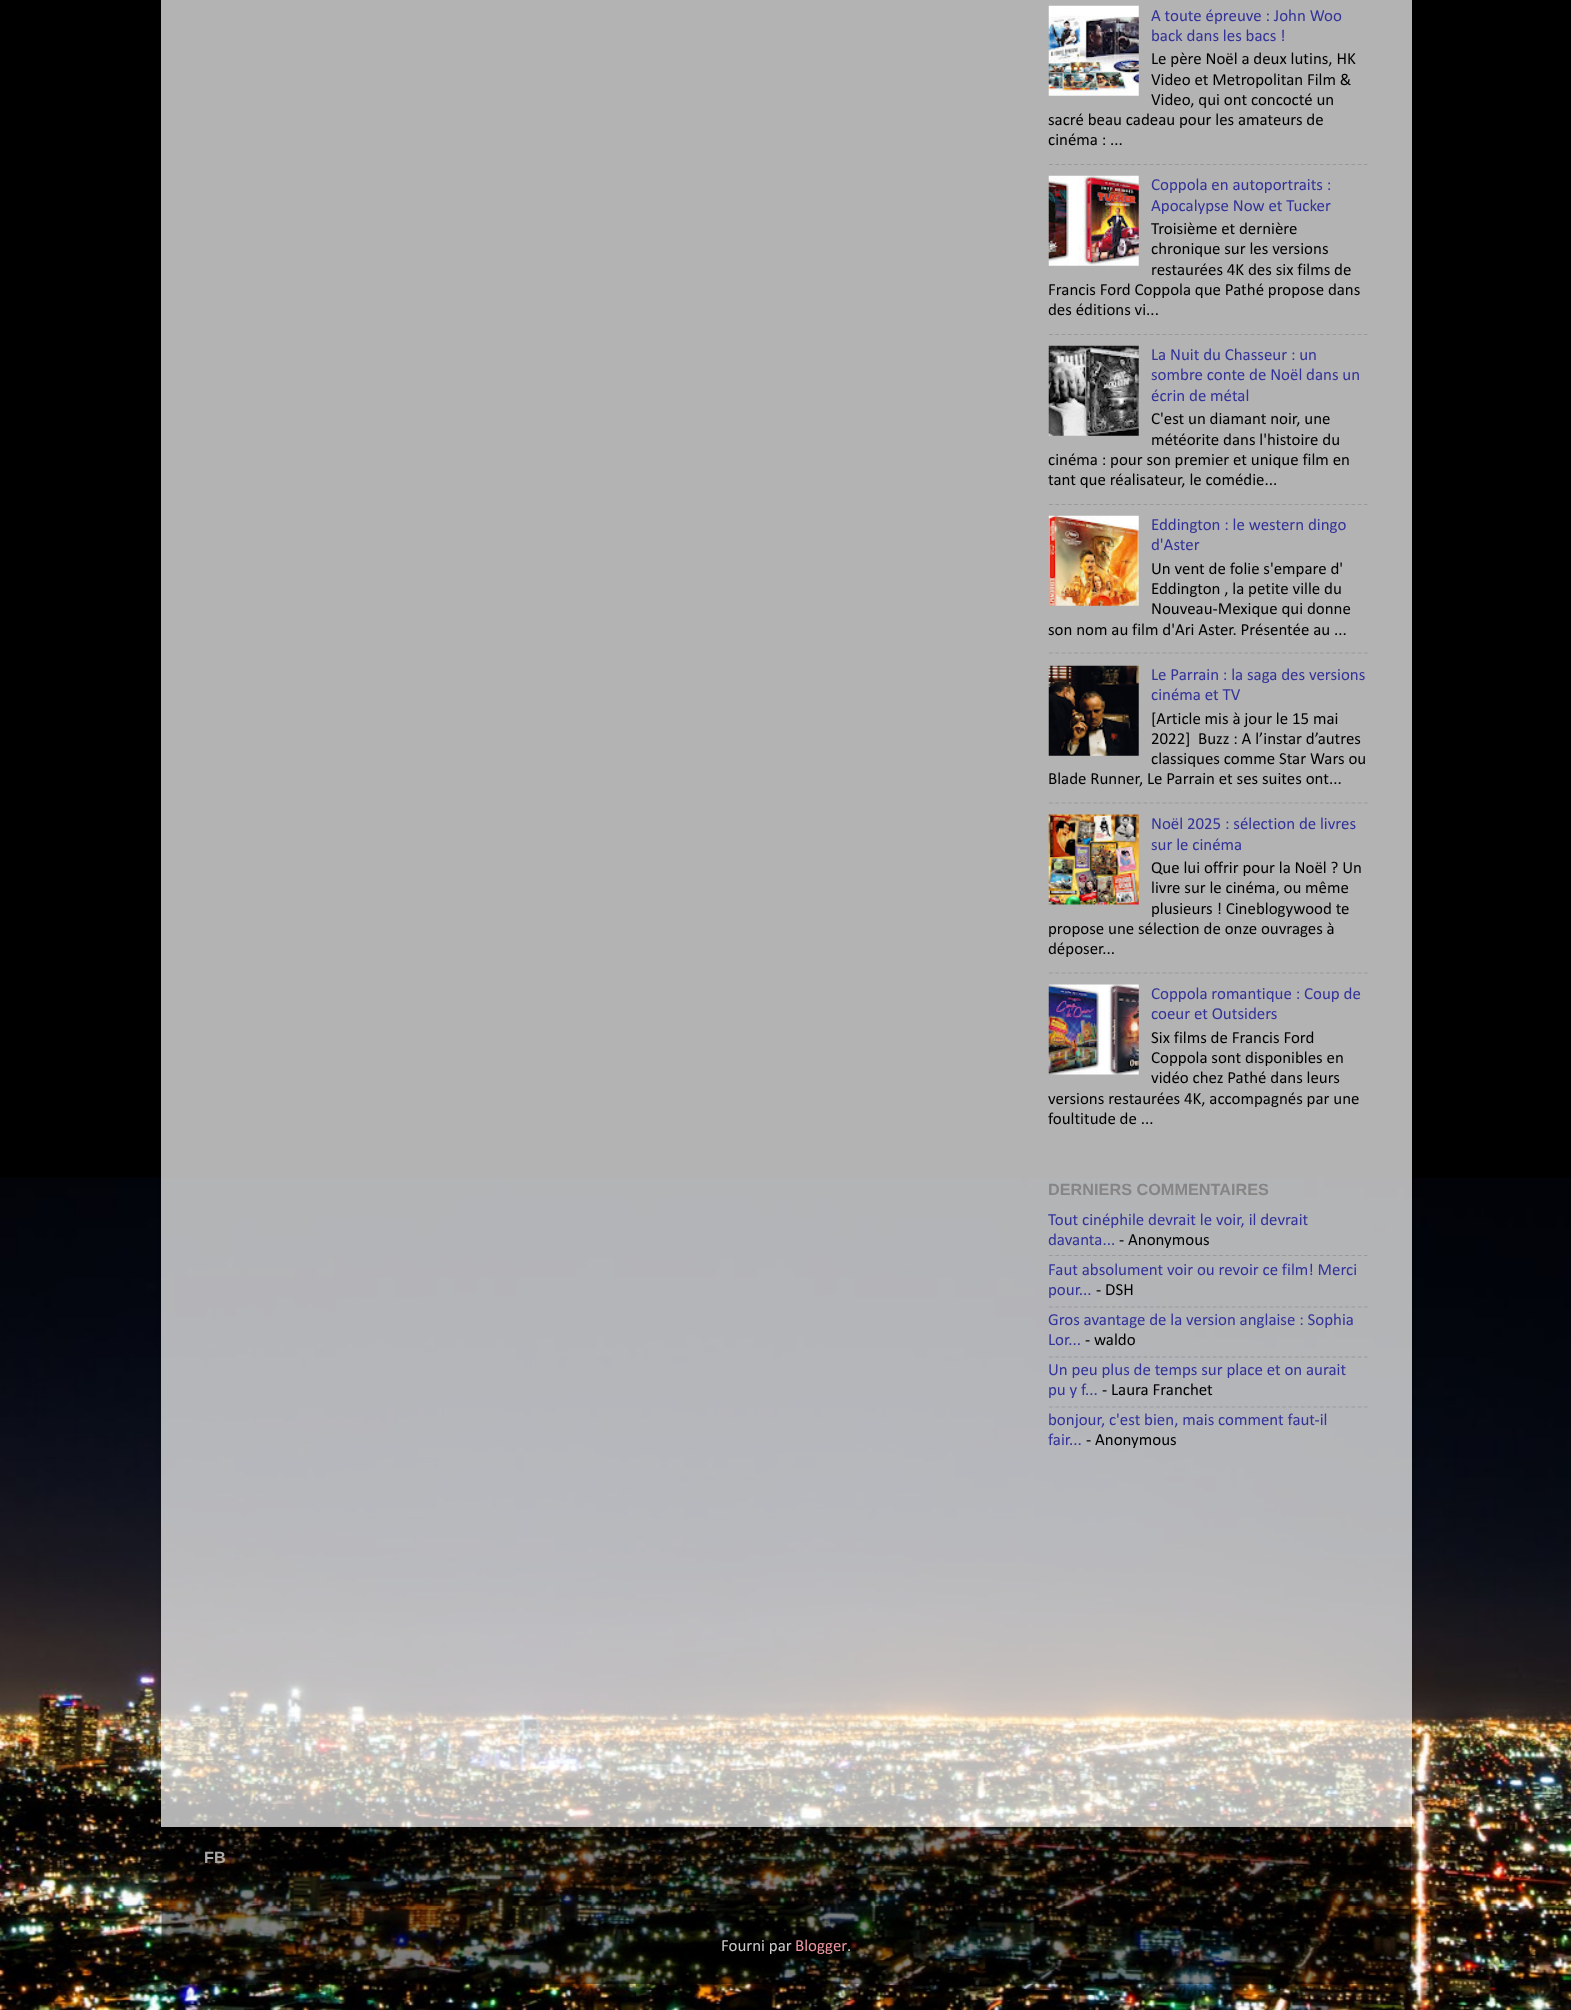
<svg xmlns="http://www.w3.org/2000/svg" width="1571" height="2010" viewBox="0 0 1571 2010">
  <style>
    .t1 { font: 16.9px Calibri; fill: #339; }
    .t2 { font: 16.9px Calibri; fill: #000; }
    .t3 { font: bold 16.25px Liberation Sans; fill: #858585; }
    .t4 { font: bold 16.25px Liberation Sans; fill: #a8a8a8; }
    .t5 { font: 16.9px Calibri; fill: #cacaca; }
    .t6 { font: 16.9px Calibri; fill: #ed969f; }
  </style>
  <defs>
    <clipPath id="clip1"><path d="M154 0H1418V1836H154ZM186-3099H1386C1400-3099 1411-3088 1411-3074V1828H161V-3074C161-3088 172-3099 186-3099Z" clip-rule="evenodd"/></clipPath>
    <clipPath id="clip2"><path d="M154 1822H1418V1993H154ZM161 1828H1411V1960C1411 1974 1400 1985 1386 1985H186C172 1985 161 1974 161 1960Z" clip-rule="evenodd"/></clipPath>
  </defs>
  <rect width="100%" height="100%" fill="#000"/>
  <image x="0" y="1177" width="1571" height="833" href="images/1.png"/>
  <g clip-path="url(#clip1)">
    <rect x="161" y="-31" width="1250" height="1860" rx="25" fill="#00000026" filter="blur(2px)"/>
  </g>
  <rect x="161" y="0" width="1251" height="1827" fill="#ffffffb3"/>
  <image x="1048" y="5" width="91" height="91" href="images/2.png"/>
  <text x="1151" y="21" class="t1">A toute épreuve : John Woo</text>
  <text x="1151" y="41" class="t1">back dans les bacs !</text>
  <text x="1151" y="64" class="t2">Le père Noël a deux lutins, HK</text>
  <text x="1151" y="85" class="t2">Video et Metropolitan Film &amp;</text>
  <text x="1151" y="105" class="t2">Video, qui ont concocté un</text>
  <text x="1048" y="125" class="t2">sacré beau cadeau pour les amateurs de</text>
  <text x="1048" y="145" class="t2">cinéma : ...</text>
  <path d="M1049 164.5H1367.5" fill="none" stroke="#999" stroke-width="1.2" stroke-dasharray="3.75 2.55"/>
  <image x="1048" y="175" width="91" height="91" href="images/3.png"/>
  <text x="1151" y="190" class="t1">Coppola en autoportraits :</text>
  <text x="1151" y="211" class="t1">Apocalypse Now et Tucker</text>
  <text x="1151" y="234" class="t2">Troisième et dernière</text>
  <text x="1151" y="254" class="t2">chronique sur les versions</text>
  <text x="1151" y="275" class="t2">restaurées 4K des six films de</text>
  <text x="1048" y="295" class="t2">Francis Ford Coppola que Pathé propose dans</text>
  <text x="1048" y="315" class="t2">des éditions vi...</text>
  <path d="M1049 334.5H1367.5" fill="none" stroke="#999" stroke-width="1.2" stroke-dasharray="3.75 2.55"/>
  <image x="1048" y="345" width="91" height="91" href="images/4.png"/>
  <text x="1151" y="360" class="t1">La Nuit du Chasseur : un</text>
  <text x="1151" y="380" class="t1">sombre conte de Noël dans un</text>
  <text x="1151" y="401" class="t1">écrin de métal</text>
  <text x="1151" y="424" class="t2">C'est un diamant noir, une</text>
  <text x="1151" y="445" class="t2">météorite dans l'histoire du</text>
  <text x="1048" y="465" class="t2">cinéma : pour son premier et unique film en</text>
  <text x="1048" y="485" class="t2">tant que réalisateur, le comédie...</text>
  <path d="M1049 504.5H1367.5" fill="none" stroke="#999" stroke-width="1.2" stroke-dasharray="3.75 2.55"/>
  <image x="1048" y="515" width="91" height="91" href="images/5.png"/>
  <text x="1151" y="530" class="t1">Eddington : le western dingo</text>
  <text x="1151" y="550" class="t1">d'Aster</text>
  <text x="1151" y="574" class="t2">Un vent de folie s'empare d'</text>
  <text x="1151" y="594" class="t2">Eddington , la petite ville du</text>
  <text x="1151" y="614" class="t2">Nouveau-Mexique qui donne</text>
  <text x="1048" y="635" class="t2">son nom au film d'Ari Aster. Présentée au ...</text>
  <path d="M1049 653H1367.5" fill="none" stroke="#999" stroke-width="1.2" stroke-dasharray="3.75 2.55"/>
  <image x="1048" y="665" width="91" height="91" href="images/6.png"/>
  <text x="1151" y="680" class="t1">Le Parrain : la saga des versions</text>
  <text x="1151" y="700" class="t1">cinéma et TV</text>
  <text x="1151" y="724" class="t2">[Article mis à jour le 15 mai</text>
  <text x="1151" y="744" class="t2" xml:space="preserve">2022]  Buzz : A l’instar d’autres</text>
  <text x="1151" y="764" class="t2">classiques comme Star Wars ou</text>
  <text x="1048" y="784" class="t2">Blade Runner, Le Parrain et ses suites ont...</text>
  <path d="M1049 803H1367.5" fill="none" stroke="#999" stroke-width="1.2" stroke-dasharray="3.75 2.55"/>
  <image x="1048" y="814" width="91" height="91" href="images/7.png"/>
  <text x="1151" y="829" class="t1">Noël 2025 : sélection de livres</text>
  <text x="1151" y="850" class="t1">sur le cinéma</text>
  <text x="1151" y="873" class="t2">Que lui offrir pour la Noël ? Un</text>
  <text x="1151" y="893" class="t2">livre sur le cinéma, ou même</text>
  <text x="1151" y="914" class="t2">plusieurs ! Cineblogywood te</text>
  <text x="1048" y="934" class="t2">propose une sélection de onze ouvrages à</text>
  <text x="1048" y="954" class="t2">déposer...</text>
  <path d="M1049 973H1367.5" fill="none" stroke="#999" stroke-width="1.2" stroke-dasharray="3.75 2.55"/>
  <image x="1048" y="984" width="91" height="91" href="images/8.png"/>
  <text x="1151" y="999" class="t1">Coppola romantique : Coup de</text>
  <text x="1151" y="1019" class="t1">coeur et Outsiders</text>
  <text x="1151" y="1043" class="t2">Six films de Francis Ford</text>
  <text x="1151" y="1063" class="t2">Coppola sont disponibles en</text>
  <text x="1151" y="1083" class="t2">vidéo chez Pathé dans leurs</text>
  <text x="1048" y="1104" class="t2">versions restaurées 4K, accompagnés par une</text>
  <text x="1048" y="1124" class="t2">foultitude de ...</text>
  <text x="1048" y="1195" class="t3">DERNIERS COMMENTAIRES</text>
  <text x="1048" y="1225" class="t1">Tout cinéphile devrait le voir, il devrait</text>
  <text x="1048" y="1245" class="t1">davanta...</text>
  <text x="1119" y="1245" class="t2">- Anonymous</text>
  <path d="M1049 1255.5H1367.5" fill="none" stroke="#9a9a9b" stroke-width="1.2" stroke-dasharray="3.75 2.55"/>
  <text x="1048" y="1275" class="t1">Faut absolument voir ou revoir ce film! Merci</text>
  <text x="1048" y="1295" class="t1">pour...</text>
  <text x="1096" y="1295" class="t2">- DSH</text>
  <path d="M1049 1307H1367.5" fill="none" stroke="#9a9a9b" stroke-width="1.2" stroke-dasharray="3.75 2.55"/>
  <text x="1048" y="1325" class="t1">Gros avantage de la version anglaise : Sophia</text>
  <text x="1048" y="1345" class="t1">Lor...</text>
  <text x="1085" y="1345" class="t2">- waldo</text>
  <path d="M1049 1357H1367.5" fill="none" stroke="#9a9a9c" stroke-width="1.2" stroke-dasharray="3.75 2.55"/>
  <text x="1048" y="1375" class="t1">Un peu plus de temps sur place et on aurait</text>
  <text x="1048" y="1395" class="t1">pu y f...</text>
  <text x="1102" y="1395" class="t2">- Laura Franchet</text>
  <path d="M1049 1407H1367.5" fill="none" stroke="#9a9b9c" stroke-width="1.2" stroke-dasharray="3.75 2.55"/>
  <text x="1048" y="1425" class="t1">bonjour, c'est bien, mais comment faut-il</text>
  <text x="1048" y="1445" class="t1">fair...</text>
  <text x="1086" y="1445" class="t2">- Anonymous</text>
  <g clip-path="url(#clip2)">
    <rect x="161" y="1829" width="1250" height="157" rx="25" fill="#00000026" filter="blur(2px)"/>
  </g>
  <image x="161" y="1827" width="1251" height="158" href="images/9.png"/>
  <text x="204" y="1863" class="t4">FB</text>
  <text x="721" y="1951" class="t5">Fourni par</text>
  <text x="795" y="1951" class="t6">Blogger</text>
  <text x="847" y="1951" class="t5">.</text>
</svg>
